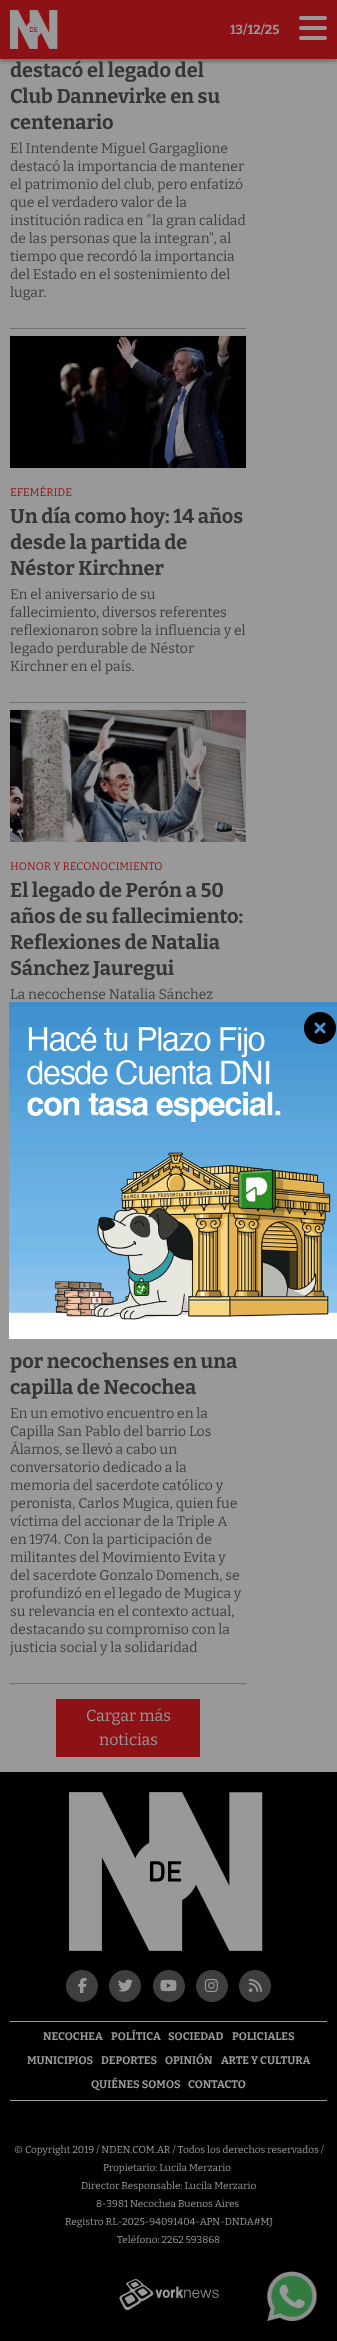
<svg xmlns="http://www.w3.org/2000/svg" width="337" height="2341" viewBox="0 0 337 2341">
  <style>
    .t1 { font: bold 13px Bitter; fill: #999; }
    .t2 { font: bold 20px Bitter; fill: #353537; }
    .t3 { font: 14px Bitter; fill: #3e3e3e; }
    .t4 { font: 11px Bitter; fill: #8e1116; }
    .t5 { font: 16px Bitter; fill: #999; }
    .t6 { font: bold 11px Bitter; fill: #999; }
    .t7 { font: 10px Bitter; fill: #999; }
  </style>
  <rect width="100%" height="100%" fill="#999"/>
  <rect x="0" y="3" width="337" height="59" fill="#1e1e1e4d" filter="blur(1.5px)"/>
  <rect x="0" y="0" width="337" height="59" fill="#8e1116"/>
  <image x="10" y="10" width="48" height="39" href="images/1.png"/>
  <text x="230" y="34" class="t1">13/12/25</text>
  <image x="299" y="16" width="28" height="24" href="images/2.png"/>
  <rect x="10" y="328" width="236" height="1" fill="#707173"/>
  <text x="10" y="77" class="t2">destacó el legado del</text>
  <text x="10" y="103" class="t2">Club Dannevirke en su</text>
  <text x="10" y="129" class="t2">centenario</text>
  <text x="10" y="153" class="t3">El Intendente Miguel Gargaglione</text>
  <text x="10" y="171" class="t3">destacó la importancia de mantener</text>
  <text x="10" y="189" class="t3">el patrimonio del club, pero enfatizó</text>
  <text x="10" y="207" class="t3">que el verdadero valor de la</text>
  <text x="10" y="225" class="t3">institución radica en "la gran calidad</text>
  <text x="10" y="243" class="t3">de las personas que la integran", al</text>
  <text x="10" y="261" class="t3">tiempo que recordó la importancia</text>
  <text x="10" y="279" class="t3">del Estado en el sostenimiento del</text>
  <text x="10" y="297" class="t3">lugar.</text>
  <rect x="10" y="702" width="236" height="1" fill="#707173"/>
  <image x="10" y="336" width="236" height="132" href="images/3.png"/>
  <text x="10" y="496" class="t4">EFEMÉRIDE</text>
  <text x="10" y="523" class="t2">Un día como hoy: 14 años</text>
  <text x="10" y="549" class="t2">desde la partida de</text>
  <text x="10" y="575" class="t2">Néstor Kirchner</text>
  <text x="10" y="599" class="t3">En el aniversario de su</text>
  <text x="10" y="617" class="t3">fallecimiento, diversos referentes</text>
  <text x="10" y="635" class="t3">reflexionaron sobre la influencia y el</text>
  <text x="10" y="653" class="t3">legado perdurable de Néstor</text>
  <text x="10" y="671" class="t3">Kirchner en el país.</text>
  <image x="10" y="710" width="236" height="132" href="images/4.png"/>
  <text x="10" y="870" class="t4">HONOR Y RECONOCIMIENTO</text>
  <text x="10" y="897" class="t2">El legado de Perón a 50</text>
  <text x="10" y="923" class="t2">años de su fallecimiento:</text>
  <text x="10" y="949" class="t2">Reflexiones de Natalia</text>
  <text x="10" y="975" class="t2">Sánchez Jauregui</text>
  <text x="10" y="999" class="t3">La necochense Natalia Sánchez</text>
  <rect x="10" y="1683" width="236" height="1" fill="#707173"/>
  <text x="10" y="1368" class="t2">por necochenses en una</text>
  <text x="10" y="1394" class="t2">capilla de Necochea</text>
  <text x="10" y="1418" class="t3">En un emotivo encuentro en la</text>
  <text x="10" y="1436" class="t3">Capilla San Pablo del barrio Los</text>
  <text x="10" y="1454" class="t3">Álamos, se llevó a cabo un</text>
  <text x="10" y="1472" class="t3">conversatorio dedicado a la</text>
  <text x="10" y="1490" class="t3">memoria del sacerdote católico y</text>
  <text x="10" y="1508" class="t3">peronista, Carlos Mugica, quien fue</text>
  <text x="10" y="1526" class="t3">víctima del accionar de la Triple A</text>
  <text x="10" y="1544" class="t3">en 1974. Con la participación de</text>
  <text x="10" y="1562" class="t3">militantes del Movimiento Evita y</text>
  <text x="10" y="1580" class="t3">del sacerdote Gonzalo Domench, se</text>
  <text x="10" y="1598" class="t3">profundizó en el legado de Mugica y</text>
  <text x="10" y="1616" class="t3">su relevancia en el contexto actual,</text>
  <text x="10" y="1634" class="t3">destacando su compromiso con la</text>
  <text x="10" y="1652" class="t3">justicia social y la solidaridad</text>
  <rect x="56" y="1699" width="144" height="58" fill="#8e1116"/>
  <text x="86" y="1721" class="t5">Cargar más</text>
  <text x="99" y="1745" class="t5">noticias</text>
  <rect x="0" y="1772" width="337" height="569" fill="#000"/>
  <image x="69" y="1792" width="194" height="159" href="images/5.png"/>
  <image x="66" y="1970" width="32" height="32" href="images/6.png"/>
  <image x="78" y="1978" width="9" height="15" href="images/7.png"/>
  <image x="109" y="1970" width="32" height="32" href="images/6.png"/>
  <image x="118" y="1979" width="15" height="13" href="images/8.png"/>
  <image x="153" y="1970" width="32" height="32" href="images/6.png"/>
  <image x="160" y="1979" width="17" height="13" href="images/9.png"/>
  <image x="196" y="1970" width="32" height="32" href="images/6.png"/>
  <image x="204" y="1979" width="14" height="13" href="images/10.png"/>
  <image x="239" y="1970" width="32" height="32" href="images/6.png"/>
  <image x="248" y="1979" width="14" height="13" href="images/11.png"/>
  <rect x="10" y="2021" width="317" height="1" fill="#999"/>
  <text x="43" y="2040" class="t6">NECOCHEA</text>
  <text x="111" y="2040" class="t6">POLÍTICA</text>
  <text x="168" y="2040" class="t6">SOCIEDAD</text>
  <text x="232" y="2040" class="t6">POLICIALES</text>
  <text x="27" y="2064" class="t6">MUNICIPIOS</text>
  <text x="101" y="2064" class="t6">DEPORTES</text>
  <text x="165" y="2064" class="t6">OPINIÓN</text>
  <text x="221" y="2064" class="t6">ARTE Y CULTURA</text>
  <text x="91" y="2088" class="t6">QUIÉNES SOMOS</text>
  <text x="188" y="2088" class="t6">CONTACTO</text>
  <rect x="10" y="2100" width="317" height="1" fill="#999"/>
  <text x="14" y="2153" class="t7">© Copyright 2019 / NDEN.COM.AR / Todos los derechos reservados /</text>
  <text x="103" y="2171" class="t7">Propietario: Lucila Merzario</text>
  <text x="81" y="2189" class="t7">Director Responsable: Lucila Merzario</text>
  <text x="96" y="2207" class="t7">8-3981 Necochea Buenos Aires</text>
  <text x="65" y="2225" class="t7">Registro RL-2025-94091404-APN-DNDA#MJ</text>
  <text x="117" y="2243" class="t7">Teléfono: 2262 593868</text>
  <image x="119" y="2279" width="100" height="32" href="images/12.png"/>
  <image x="267" y="2271" width="50" height="50" href="images/13.png"/>
  <image x="9" y="1002" width="328" height="337" href="images/14.png"/>
  <image x="304" y="1012" width="32" height="32" href="images/15.png"/>
</svg>
